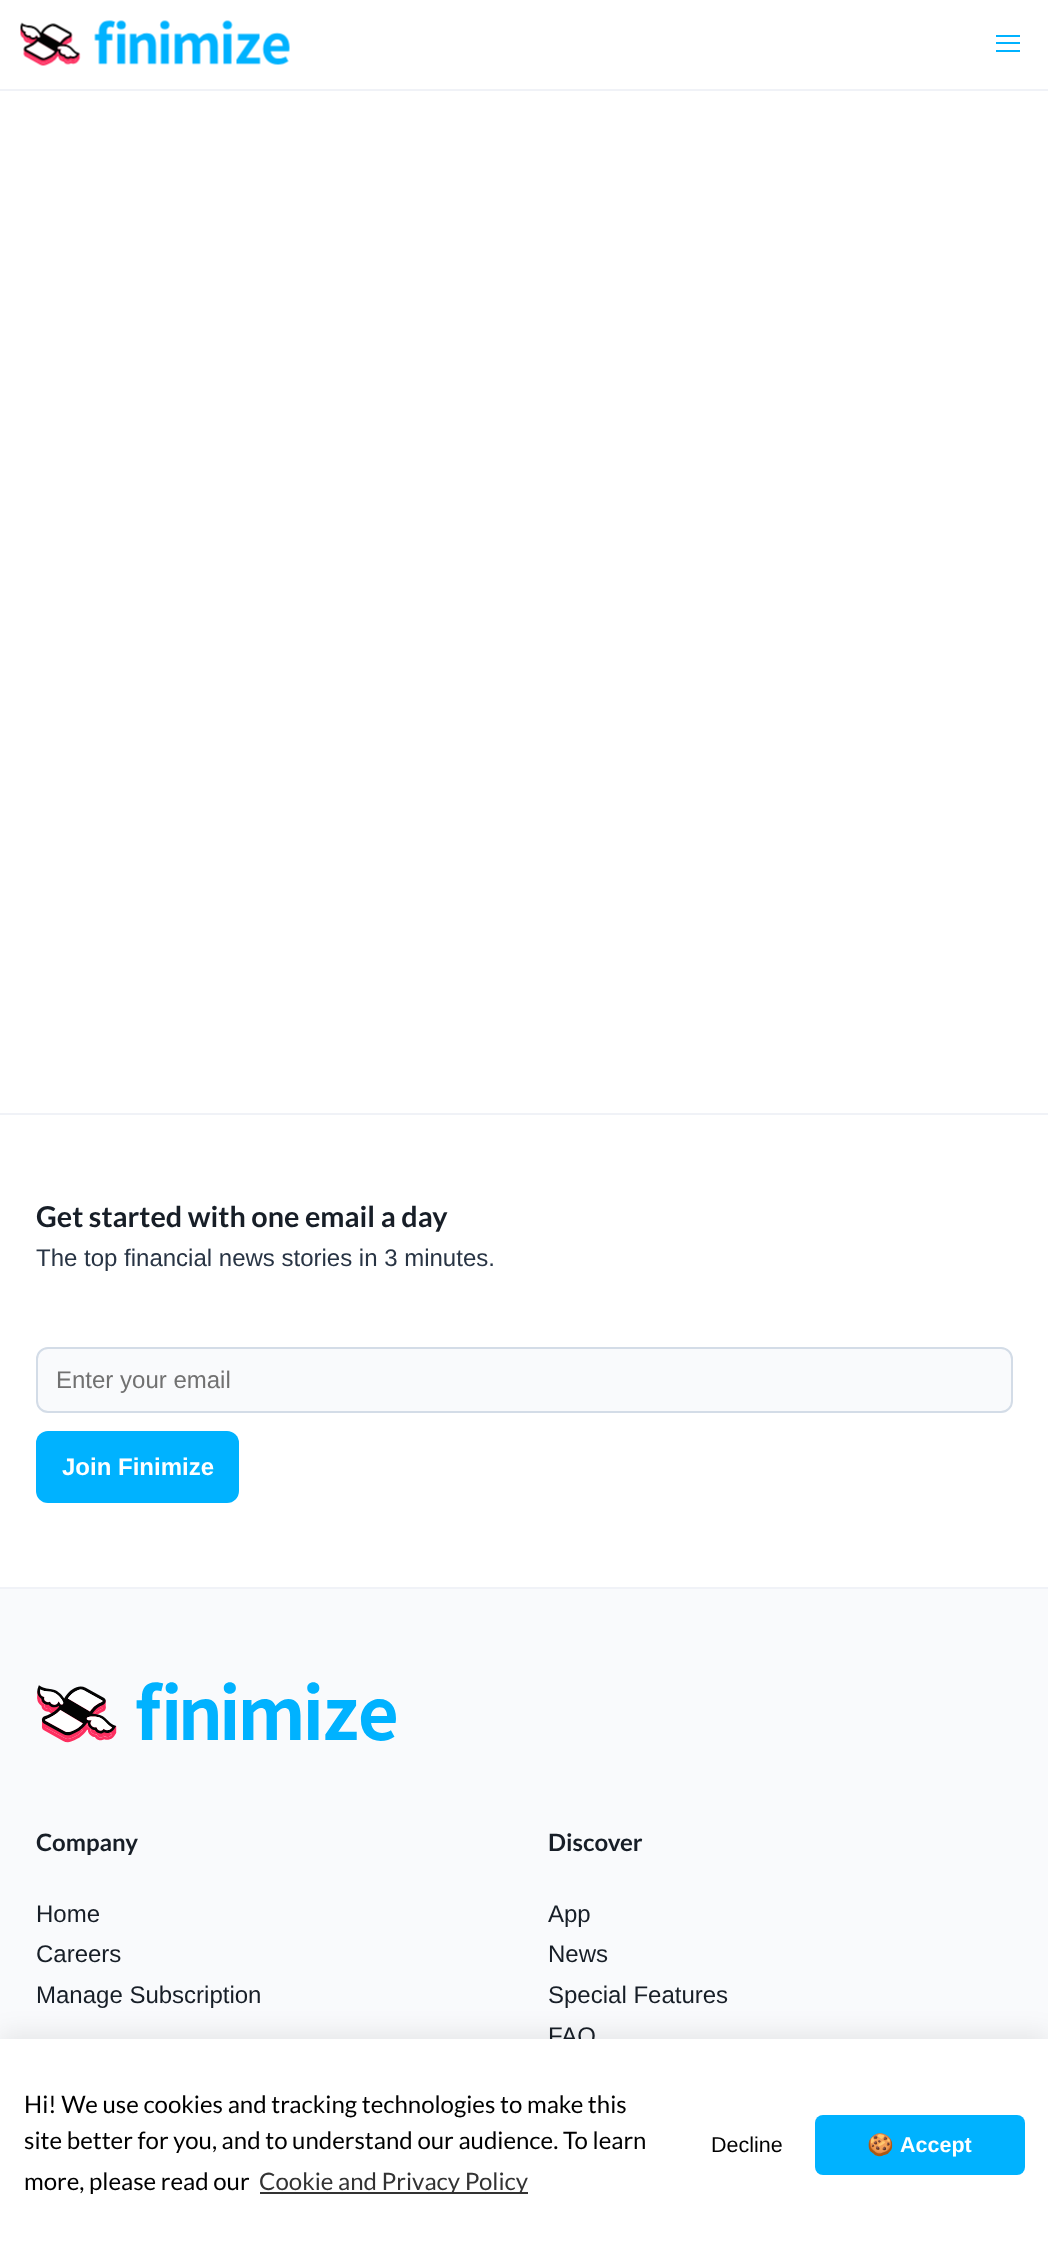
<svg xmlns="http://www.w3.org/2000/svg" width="1048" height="2251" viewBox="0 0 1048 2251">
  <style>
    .t1 { font: bold 28.75px Lato; fill: #171e27; }
    .t2 { font: 24px Liberation Sans; fill: #283444; }
    .t3 { font: 24px Liberation Sans; fill: #717171; }
    .t4 { font: bold 24px Liberation Sans; fill: #fff; }
    .t5 { font: bold 24px Lato; fill: #171e27; }
    .t6 { font: 24px Liberation Sans; fill: #171e27; }
    .t7 { font: 24px Lato; fill: #000; }
    .t8 { font: 24px Lato; fill: #333; }
    .t9 { font: 21.5px Liberation Sans; fill: #000; }
    .t10 { font: bold 21.5px Noto Color Emoji; fill: #fff; }
    .t11 { font: bold 21.5px Liberation Sans; fill: #fff; }
  </style>
  <rect width="100%" height="100%" fill="#fff"/>
  <rect x="0" y="89" width="1048" height="2" fill="#f0f2f7"/>
  <image x="20" y="20" width="270" height="46" href="images/1.png"/>
  <rect x="996" y="35" width="24" height="2" fill="#00b2ff"/>
  <rect x="996" y="42" width="24" height="2" fill="#00b2ff"/>
  <rect x="996" y="50" width="24" height="2" fill="#00b2ff"/>
  <rect x="0" y="1113" width="1048" height="2" fill="#f0f2f7"/>
  <text x="36" y="1227" class="t1">Get started with one email a day</text>
  <text x="36" y="1266" class="t2">The top financial news stories in 3 minutes.</text>
  <rect x="37" y="1348" width="975" height="64" rx="11" fill="#f9fafc" stroke="#d3dce7" stroke-width="2"/>
  <text x="56" y="1388" class="t3">Enter your email</text>
  <rect x="36" y="1431" width="203" height="72" rx="12" fill="#00b2ff"/>
  <text x="62" y="1475" class="t4">Join Finimize</text>
  <rect x="0" y="1589" width="1048" height="450" fill="#f9fafc"/>
  <rect x="0" y="1587" width="1048" height="2" fill="#f0f2f7"/>
  <image x="37" y="1682" width="359" height="61" href="images/2.png"/>
  <text x="36" y="1851" class="t5">Company</text>
  <text x="36" y="1922" class="t6">Home</text>
  <text x="36" y="1962" class="t6">Careers</text>
  <text x="36" y="2003" class="t6">Manage Subscription</text>
  <text x="548" y="1851" class="t5">Discover</text>
  <text x="548" y="1922" class="t6">App</text>
  <text x="548" y="1962" class="t6">News</text>
  <text x="548" y="2003" class="t6">Special Features</text>
  <text x="548" y="2044" class="t6">FAQ</text>
  <rect x="0" y="2033" width="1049" height="213" fill="#00000014" filter="blur(12px)"/>
  <rect x="0" y="2039" width="1048" height="212" fill="#fff"/>
  <text x="24" y="2113" class="t7">Hi! We use cookies and tracking technologies to make this</text>
  <text x="24" y="2149" class="t7">site better for you, and to understand our audience. To learn</text>
  <text x="24" y="2190" class="t7">more, please read our</text>
  <rect x="260" y="2192" width="268" height="2" fill="#333"/>
  <text x="259" y="2190" class="t8">Cookie and Privacy Policy</text>
  <text x="711" y="2152" class="t9">Decline</text>
  <rect x="815" y="2115" width="210" height="60" rx="8" fill="#00b2ff"/>
  <text x="867" y="2152" class="t10">🍪</text>
  <text x="900" y="2152" class="t11">Accept</text>
</svg>
